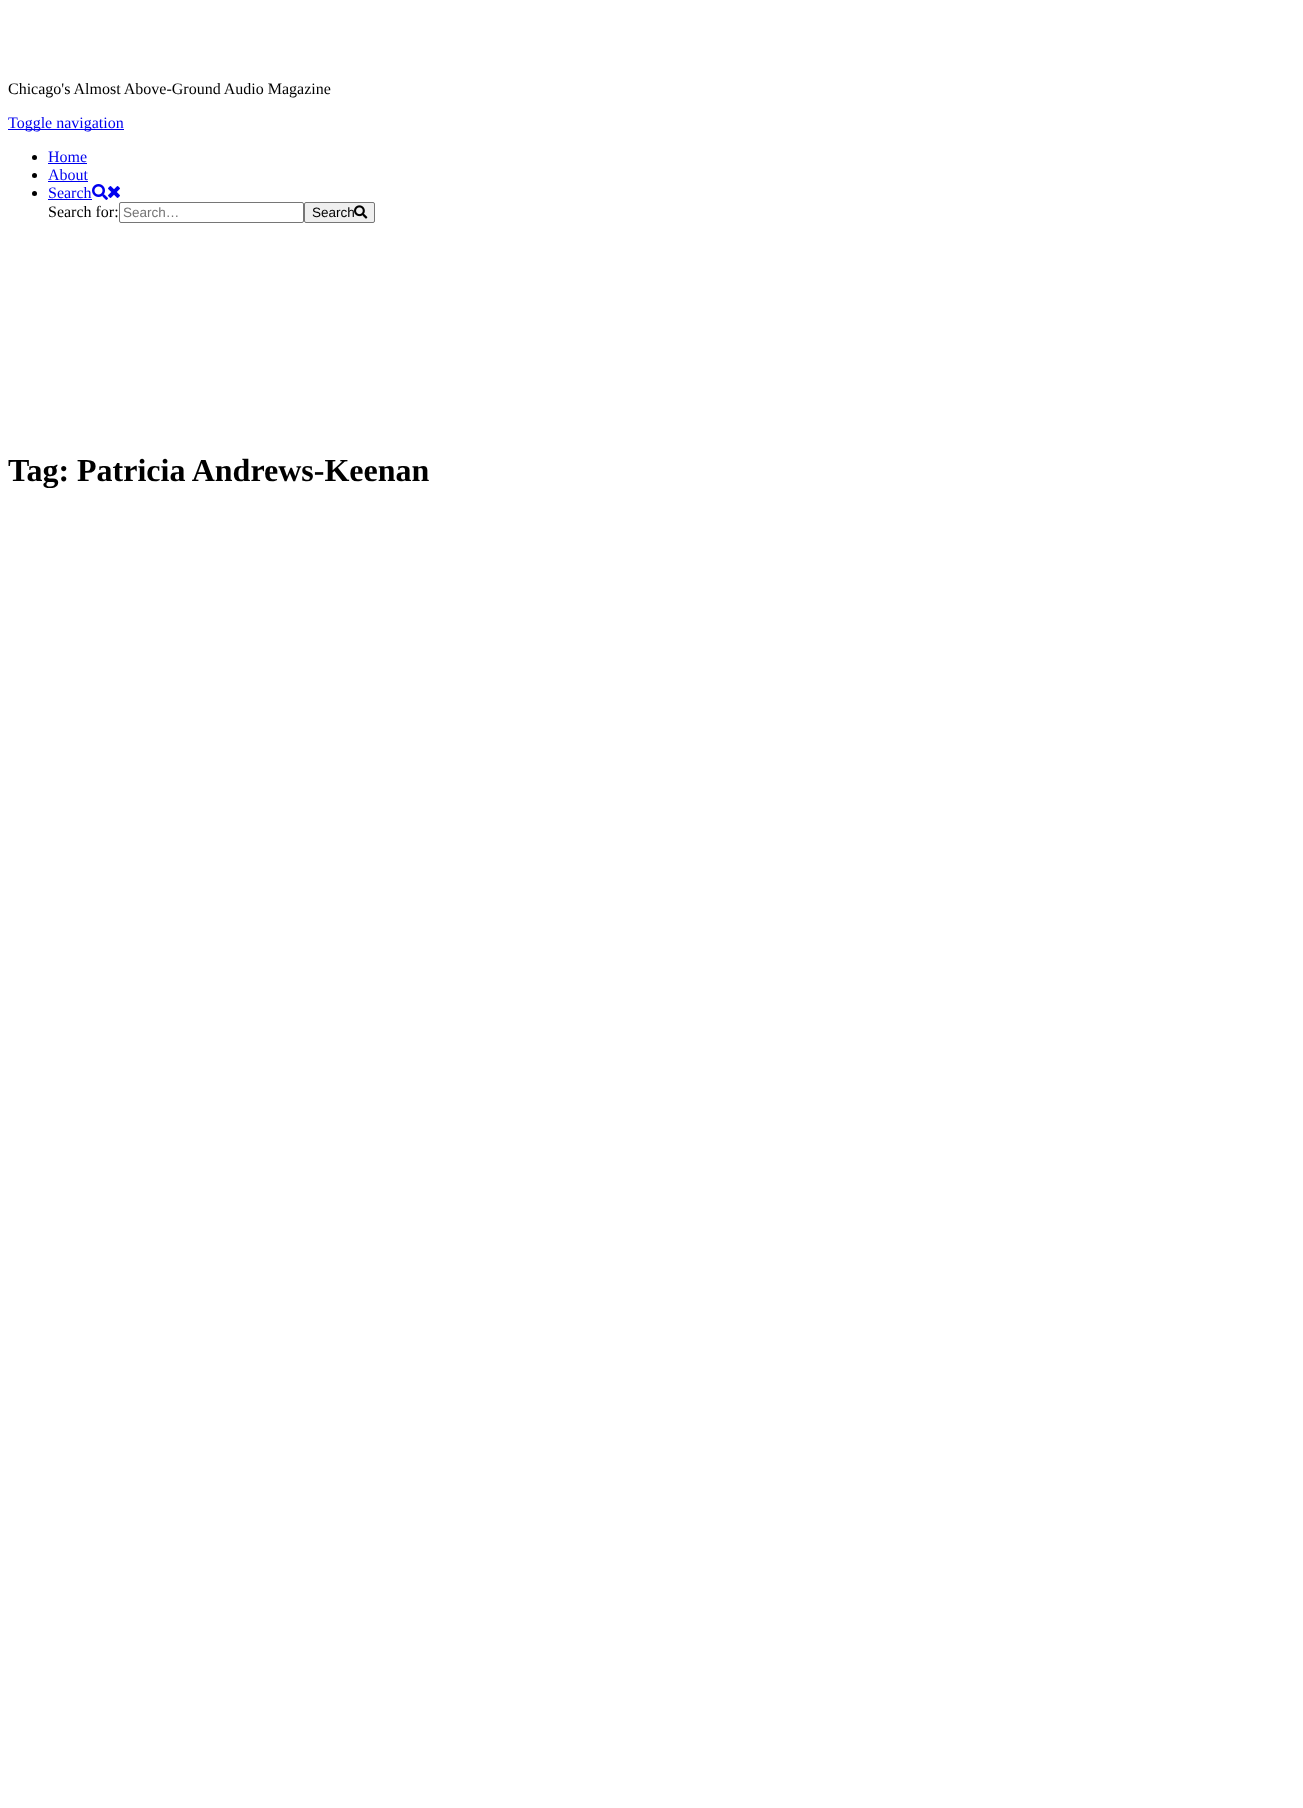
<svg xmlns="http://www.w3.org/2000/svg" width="1303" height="1808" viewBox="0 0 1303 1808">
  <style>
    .t1 { font: 16px Liberation Serif; fill: #000; }
    .t2 { font: 16px Liberation Serif; fill: #00e; }
    .t3 { font: 13.5px Liberation Sans; fill: #757575; }
    .t4 { font: 13.5px Liberation Sans; fill: #000; }
    .t5 { font: bold 32px Liberation Serif; fill: #000; }
  </style>
  <rect width="100%" height="100%" fill="#fff"/>
  <text x="8" y="94" class="t1">Chicago's Almost Above-Ground Audio Magazine</text>
  <rect x="8" y="129" width="116" height="1" fill="#00e"/>
  <text x="8" y="128" class="t2">Toggle navigation</text>
  <circle cx="34.5" cy="157.5" r="2.5" fill="#000"/>
  <text x="48" y="162" class="t2">Home</text>
  <rect x="48" y="163" width="39" height="1" fill="#00e"/>
  <circle cx="34.5" cy="175.5" r="2.5" fill="#000"/>
  <text x="48" y="180" class="t2">About</text>
  <rect x="48" y="181" width="40" height="1" fill="#00e"/>
  <circle cx="34.5" cy="193.5" r="2.5" fill="#000"/>
  <text x="48" y="198" class="t2">Search</text>
  <rect x="48" y="199" width="44" height="1" fill="#00e"/>
  <image x="92" y="184" width="16" height="16" href="images/1.png"/>
  <image x="108" y="186" width="12" height="12" href="images/2.png"/>
  <text x="48" y="217" class="t1">Search for:</text>
  <rect x="119.5" y="202.5" width="184" height="20" rx="1.5" fill="none" stroke="#767676"/>
  <text x="123" y="217" class="t3">Search…</text>
  <rect x="304.5" y="202.5" width="70" height="20" rx="1.5" fill="#efefef" stroke="#767676"/>
  <text x="312" y="217" class="t4">Search</text>
  <image x="354" y="205" width="14" height="14" href="images/3.png"/>
  <text x="8" y="481" class="t5">Tag: Patricia Andrews-Keenan</text>
</svg>
